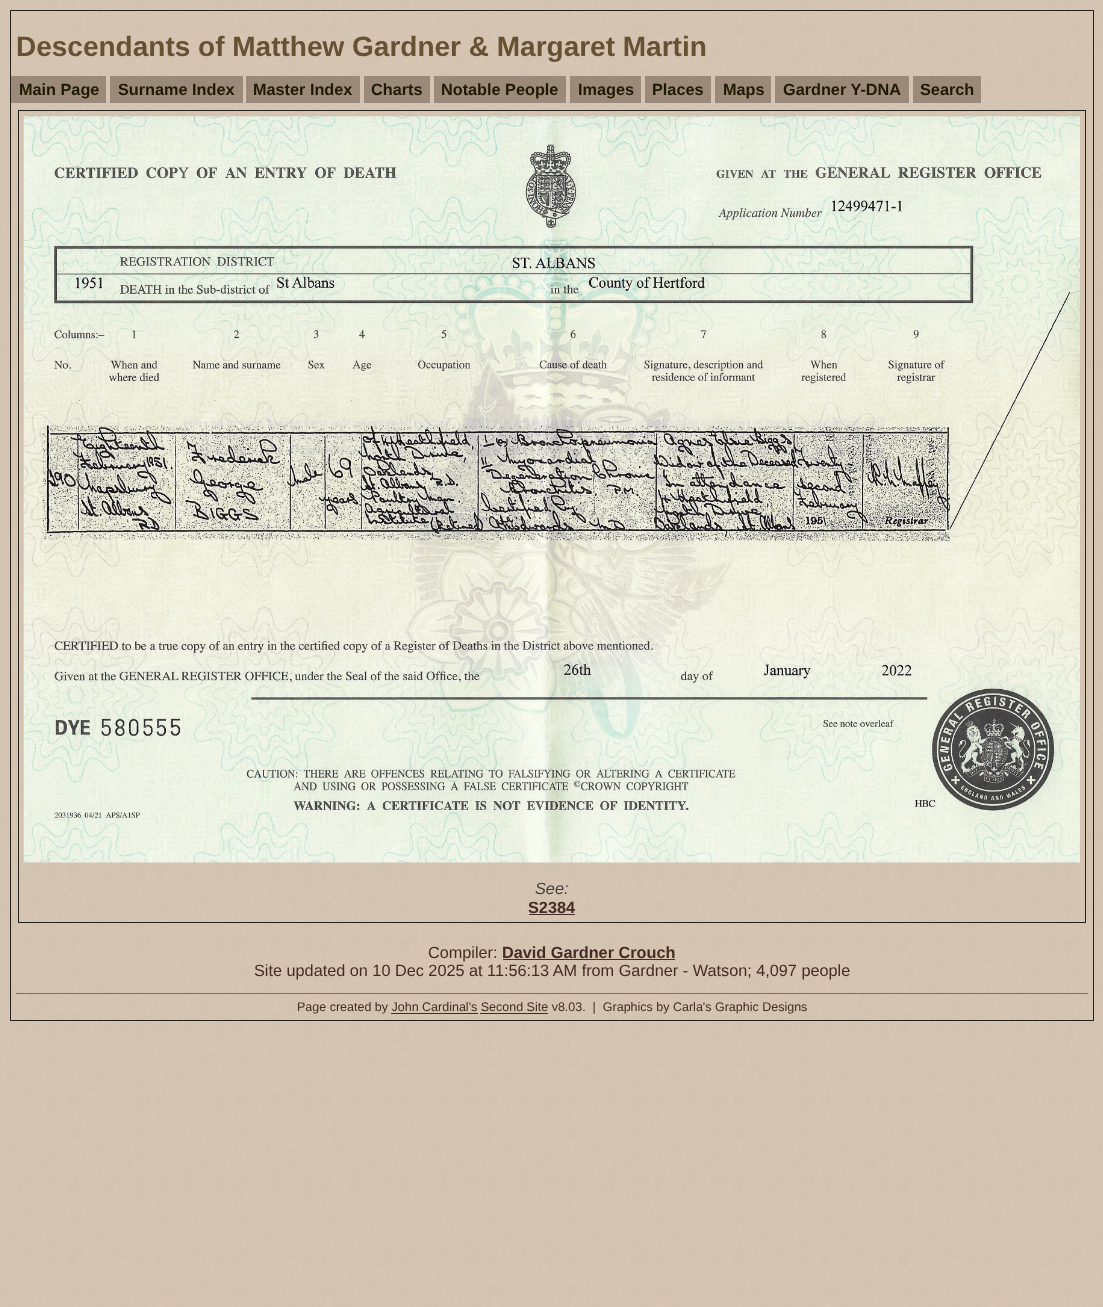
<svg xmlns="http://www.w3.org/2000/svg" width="1103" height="1307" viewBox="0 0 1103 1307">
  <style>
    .t1 { font: bold 28px Liberation Sans; fill: #665133; }
    .t2 { font: bold 16.25px Liberation Sans; fill: #1f1a00; }
    .t3 { font: italic 16.25px Liberation Sans; fill: #404040; }
    .t4 { font: bold 16.25px Liberation Sans; fill: #452c25; }
    .t5 { font: 16.25px Liberation Sans; fill: #452c25; }
    .t6 { font: 12.5px Liberation Sans; fill: #452c25; }
  </style>
  <rect width="100%" height="100%" fill="#fff"/>
  <image x="0" y="0" width="1103" height="1307" href="images/1.png"/>
  <rect x="10.5" y="10.5" width="1083" height="1010" fill="none" stroke="#26231f"/>
  <text x="16" y="56" class="t1">Descendants of Matthew Gardner &amp; Margaret Martin</text>
  <rect x="11" y="76" width="95" height="27" fill="#9b8a7a"/>
  <text x="19" y="95" class="t2">Main Page</text>
  <rect x="110" y="76" width="133" height="27" fill="#9b8a7a"/>
  <text x="118" y="95" class="t2">Surname Index</text>
  <rect x="246" y="76" width="114" height="27" fill="#9b8a7a"/>
  <text x="253" y="95" class="t2">Master Index</text>
  <rect x="364" y="76" width="66" height="27" fill="#9b8a7a"/>
  <text x="371" y="95" class="t2">Charts</text>
  <rect x="434" y="76" width="132" height="27" fill="#9b8a7a"/>
  <text x="441" y="95" class="t2">Notable People</text>
  <rect x="570" y="76" width="71" height="27" fill="#9b8a7a"/>
  <text x="578" y="95" class="t2">Images</text>
  <rect x="645" y="76" width="66" height="27" fill="#9b8a7a"/>
  <text x="652" y="95" class="t2">Places</text>
  <rect x="715" y="76" width="56" height="27" fill="#9b8a7a"/>
  <text x="723" y="95" class="t2">Maps</text>
  <rect x="775" y="76" width="134" height="27" fill="#9b8a7a"/>
  <text x="783" y="95" class="t2">Gardner Y-DNA</text>
  <rect x="913" y="76" width="68" height="27" fill="#9b8a7a"/>
  <text x="920" y="95" class="t2">Search</text>
  <rect x="18.5" y="110.5" width="1067" height="812" fill="none" stroke="#26231f"/>
  <image x="23" y="116" width="1057" height="747" href="images/2.png"/>
  <text x="535" y="894" class="t3">See:</text>
  <text x="528" y="913" class="t4">S2384</text>
  <rect x="529" y="914" width="46" height="1" fill="#452c25"/>
  <text x="428" y="958" class="t5">Compiler:</text>
  <text x="502" y="958" class="t4">David Gardner Crouch</text>
  <rect x="503" y="959" width="172" height="1" fill="#452c25"/>
  <text x="254" y="976" class="t5">Site updated on 10 Dec 2025 at 11:56:13 AM from Gardner - Watson; 4,097 people</text>
  <rect x="16" y="993" width="1072" height="1" fill="#807059"/>
  <text x="297" y="1011" class="t6" xml:space="preserve">Page created by John Cardinal's Second Site v8.03.  |  Graphics by Carla's Graphic Designs</text>
  <rect x="391" y="1013" width="87" height="1" fill="#452c25"/>
  <rect x="480" y="1013" width="68" height="1" fill="#452c25"/>
</svg>
